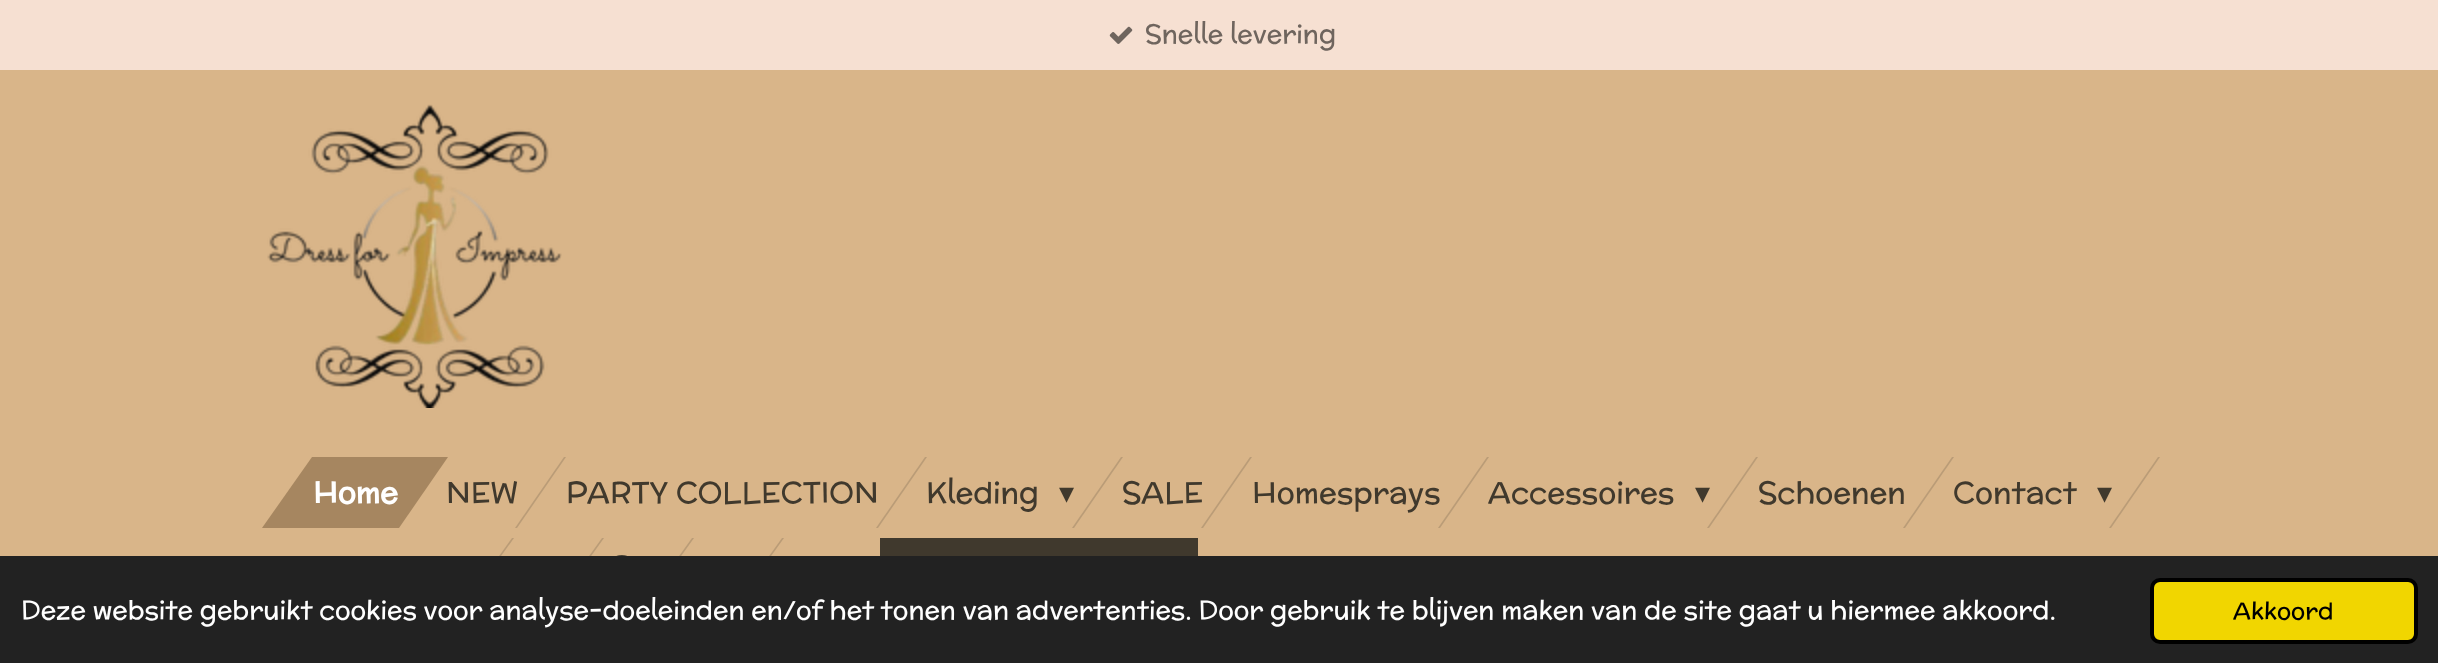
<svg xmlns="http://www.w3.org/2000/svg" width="2438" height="663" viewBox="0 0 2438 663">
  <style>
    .t1 { font: 26px McLaren; fill: #6f655e; }
    .t2 { font: bold 30px McLaren; fill: #fff; }
    .t3 { font: 30px McLaren; fill: #40392d; }
    .t4 { font: 30px DejaVu Sans; fill: #40392d; }
    .t5 { font: 26px McLaren; fill: #fff; }
    .t6 { font: 23.5px McLaren; fill: #000; }
  </style>
  <rect width="100%" height="100%" fill="#f6e0d2"/>
  <image x="1109" y="26" width="24" height="18" href="images/1.png"/>
  <text x="1145" y="43" class="t1">Snelle levering</text>
  <rect x="0" y="70" width="2438" height="486" fill="#d9b589"/>
  <image x="267" y="104" width="295" height="304" href="images/2.png"/>
  <path d="M312 457H448L399 528H262Z" fill="#a68660"/>
  <text x="313" y="503" class="t2">Home</text>
  <path d="M564 457H566L517 528H515Z" fill="#ba9c77"/>
  <text x="446" y="503" class="t3">NEW</text>
  <text x="566" y="503" class="t3">PARTY COLLECTION</text>
  <path d="M925 457H927L878 528H876Z" fill="#ba9c77"/>
  <text x="926" y="503" class="t3">Kleding</text>
  <path d="M1121 457H1123L1074 528H1072Z" fill="#ba9c77"/>
  <text x="1059" y="503" class="t4">▾</text>
  <path d="M1250 457H1252L1203 528H1201Z" fill="#ba9c77"/>
  <text x="1122" y="503" class="t3">SALE</text>
  <path d="M1487 457H1489L1440 528H1438Z" fill="#ba9c77"/>
  <text x="1252" y="503" class="t3">Homesprays</text>
  <text x="1488" y="503" class="t3">Accessoires</text>
  <path d="M1756 457H1758L1709 528H1707Z" fill="#ba9c77"/>
  <text x="1695" y="503" class="t4">▾</text>
  <path d="M1952 457H1954L1905 528H1903Z" fill="#ba9c77"/>
  <text x="1758" y="503" class="t3">Schoenen</text>
  <text x="1953" y="503" class="t3">Contact</text>
  <path d="M2158 457H2160L2111 528H2109Z" fill="#ba9c77"/>
  <text x="2097" y="503" class="t4">▾</text>
  <path d="M512 538H514L464 608H462Z" fill="#ba9c77"/>
  <path d="M602 538H604L554 608H552Z" fill="#ba9c77"/>
  <image x="616" y="555" width="11" height="1" href="images/3.png"/>
  <path d="M692 538H694L644 608H642Z" fill="#ba9c77"/>
  <path d="M782 538H784L734 608H732Z" fill="#ba9c77"/>
  <rect x="880" y="538" width="318" height="18" fill="#40392d"/>
  <rect x="0" y="556" width="2438" height="107" fill="#222"/>
  <text x="21" y="619" class="t5">Deze website gebruikt cookies voor analyse-doeleinden en/of het tonen van advertenties. Door gebruik te blijven maken van de site gaat u hiermee akkoord.</text>
  <rect x="2152" y="580" width="264" height="62" rx="8" fill="#f1d600" stroke="#000" stroke-width="4"/>
  <text x="2233" y="619" class="t6">Akkoord</text>
</svg>
